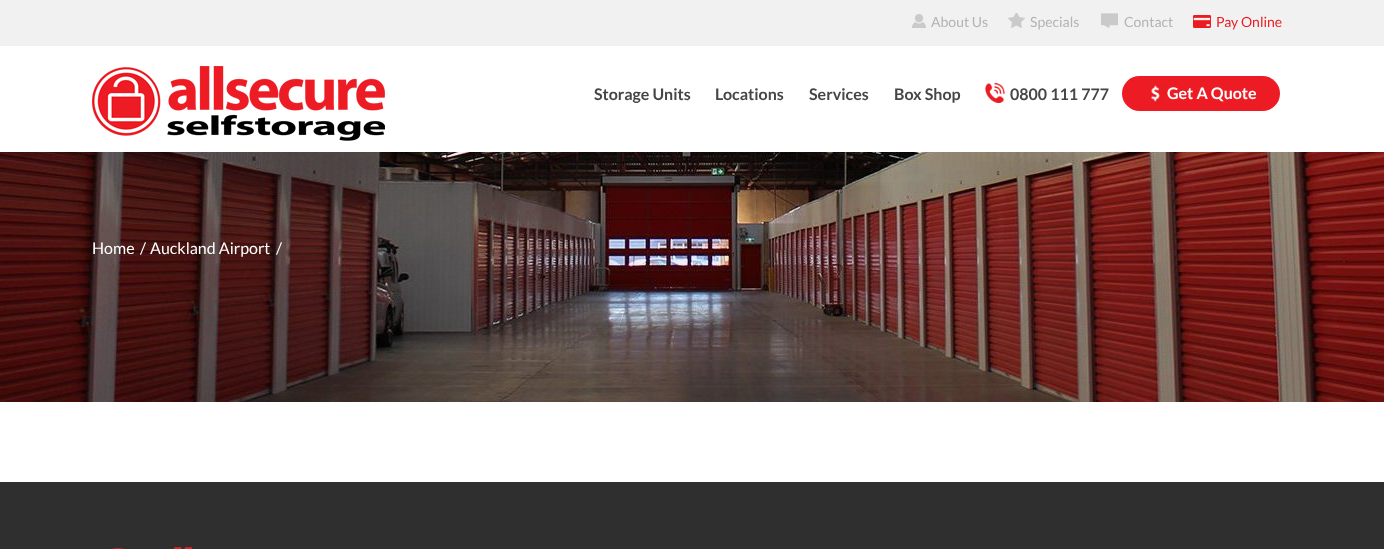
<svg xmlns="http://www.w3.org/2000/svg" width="1384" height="549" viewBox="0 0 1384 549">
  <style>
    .t1 { font: 14px Lato; fill: #b3b3b3; }
    .t2 { font: 14px Lato; fill: #ea1c21; }
    .t3 { font: bold 16px Lato; fill: #464646; }
    .t4 { font: bold 16px Lato; fill: #fff; }
    .t5 { font: 16px Lato; fill: #fff; }
  </style>
  <rect width="100%" height="100%" fill="#fff"/>
  <rect x="0" y="0" width="1384" height="46" fill="#f1f1f1"/>
  <image x="912" y="14" width="14" height="14" href="images/1.png"/>
  <text x="931" y="27" class="t1">About Us</text>
  <image x="1008" y="13" width="17" height="15" href="images/2.png"/>
  <text x="1030" y="27" class="t1">Specials</text>
  <image x="1101" y="13" width="17" height="15" href="images/3.png"/>
  <text x="1124" y="27" class="t1">Contact</text>
  <image x="1193" y="15" width="18" height="13" href="images/4.png"/>
  <text x="1216" y="27" class="t2">Pay Online</text>
  <image x="92" y="66" width="293" height="75" href="images/5.png"/>
  <text x="594" y="100" class="t3">Storage Units</text>
  <text x="715" y="100" class="t3">Locations</text>
  <text x="809" y="100" class="t3">Services</text>
  <text x="894" y="100" class="t3">Box Shop</text>
  <image x="985" y="83" width="20" height="20" href="images/6.png"/>
  <text x="1010" y="100" class="t3">0800 111 777</text>
  <rect x="1122" y="76" width="158" height="35" rx="17.5" fill="#ed1c24"/>
  <image x="1151" y="85" width="16" height="20" href="images/7.png"/>
  <text x="1167" y="99" class="t4">Get A Quote</text>
  <image x="0" y="152" width="1384" height="250" href="images/8.png"/>
  <text x="92" y="254" class="t5">Home</text>
  <text x="140" y="254" class="t5">/</text>
  <text x="150" y="254" class="t5">Auckland Airport</text>
  <text x="276" y="254" class="t5">/</text>
  <rect x="0" y="482" width="1384" height="67" fill="#2f2f2f"/>
  <image x="111" y="547" width="82" height="2" href="images/9.png"/>
</svg>
